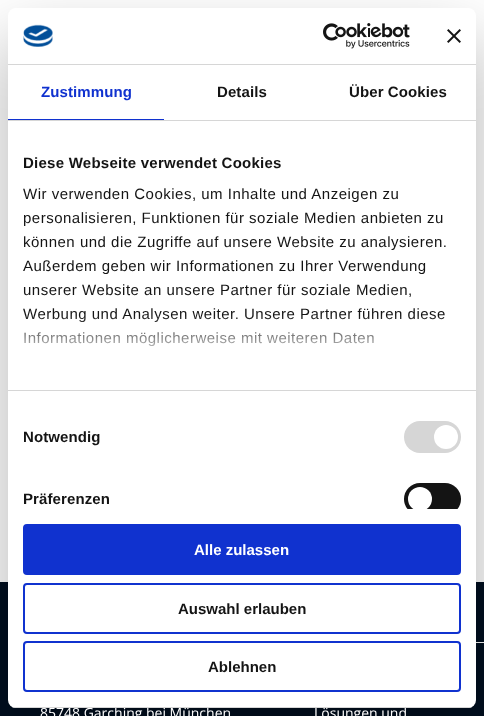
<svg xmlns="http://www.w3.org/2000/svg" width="484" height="716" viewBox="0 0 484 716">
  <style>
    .t1 { font: bold 15px Liberation Sans; letter-spacing: 0.1px; fill: #1032cf; }
    .t2 { font: bold 15px Liberation Sans; letter-spacing: 0.1px; fill: #141414; }
    .t3 { font: bold 15px Liberation Sans; letter-spacing: 0.25px; fill: #141414; }
    .t4 { font: 15px Liberation Sans; letter-spacing: 0.5px; fill: #141414; }
    .t5 { font: 14px Open Sans; fill: #fff; }
    .t6 { font: bold 15px Liberation Sans; fill: #fff; }
    .t7 { font: bold 15px Liberation Sans; fill: #141414; }
  </style>
  <defs>
    <linearGradient id="g1" gradientUnits="userSpaceOnUse" x1="236" y1="390" x2="236" y2="315"><stop offset="0" stop-color="#fff"/><stop offset="0.5" stop-color="#fff" stop-opacity="0.8"/><stop offset="1" stop-color="#fff" stop-opacity="0"/></linearGradient>
    <clipPath id="clip1"><rect x="8" y="121" width="468" height="388"/></clipPath>
    <clipPath id="clip2"><rect x="8" y="8" width="468" height="700" rx="8"/></clipPath>
  </defs>
  <rect width="100%" height="100%" fill="#fff"/>
  <rect x="0" y="582" width="484" height="134" fill="#000f20"/>
  <rect x="476" y="642" width="8" height="1" fill="#fff"/>
  <rect x="8" y="40" width="468" height="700" rx="8" fill="#0000004d" filter="blur(34px)"/>
  <rect x="8" y="8" width="468" height="700" rx="8" fill="#fff"/>
  <rect x="8" y="64" width="468" height="1" fill="#d6d6d6"/>
  <image x="23" y="24" width="30" height="23" href="images/1.png"/>
  <image x="323" y="23" width="87" height="26" href="images/2.png"/>
  <image x="447" y="29" width="14" height="14" href="images/3.png"/>
  <rect x="8" y="120" width="468" height="1" fill="#d6d6d6"/>
  <rect x="8" y="119" width="156" height="1" fill="#1032cf"/>
  <text x="41" y="97" class="t1">Zustimmung</text>
  <text x="217" y="97" class="t2">Details</text>
  <text x="349" y="97" class="t2">Über Cookies</text>
  <rect x="8" y="390" width="468" height="1" fill="#d6d6d6"/>
  <text x="23" y="168" class="t3">Diese Webseite verwendet Cookies</text>
  <text x="23" y="199" class="t4">Wir verwenden Cookies, um Inhalte und Anzeigen zu</text>
  <text x="23" y="223" class="t4">personalisieren, Funktionen für soziale Medien anbieten zu</text>
  <text x="23" y="247" class="t4">können und die Zugriffe auf unsere Website zu analysieren.</text>
  <text x="23" y="271" class="t4">Außerdem geben wir Informationen zu Ihrer Verwendung</text>
  <text x="23" y="295" class="t4">unserer Website an unsere Partner für soziale Medien,</text>
  <text x="23" y="319" class="t4">Werbung und Analysen weiter. Unsere Partner führen diese</text>
  <text x="23" y="343" class="t4">Informationen möglicherweise mit weiteren Daten</text>
  <rect x="24" y="316" width="421" height="31" fill="url(#g1)"/>
  <text x="23" y="442" class="t2">Notwendig</text>
  <rect x="404" y="421" width="57" height="32" rx="16" fill="#d6d6d6"/>
  <circle cx="446" cy="437" r="12" fill="#fff"/>
  <text x="23" y="504" class="t2">Präferenzen</text>
  <g clip-path="url(#clip1)">
    <rect x="404" y="483" width="57" height="32" rx="16" fill="#141414"/>
    <circle cx="420" cy="499" r="12" fill="#fff"/>
  </g>
  <text x="40" y="718" class="t5">85748 Garching bei München</text>
  <text x="314" y="718" class="t5">Lösungen und</text>
  <g clip-path="url(#clip2)">
    <rect x="8" y="707" width="468" height="1" fill="#d6d6d6"/>
  </g>
  <rect x="24" y="525" width="436" height="49" rx="3" fill="#1032cf" stroke="#1032cf" stroke-width="2"/>
  <text x="194" y="555" class="t6">Alle zulassen</text>
  <rect x="24" y="584" width="436" height="49" rx="3" fill="none" stroke="#1032cf" stroke-width="2"/>
  <text x="178" y="614" class="t7">Auswahl erlauben</text>
  <rect x="24" y="642" width="436" height="49" rx="3" fill="none" stroke="#1032cf" stroke-width="2"/>
  <text x="208" y="672" class="t7">Ablehnen</text>
</svg>
